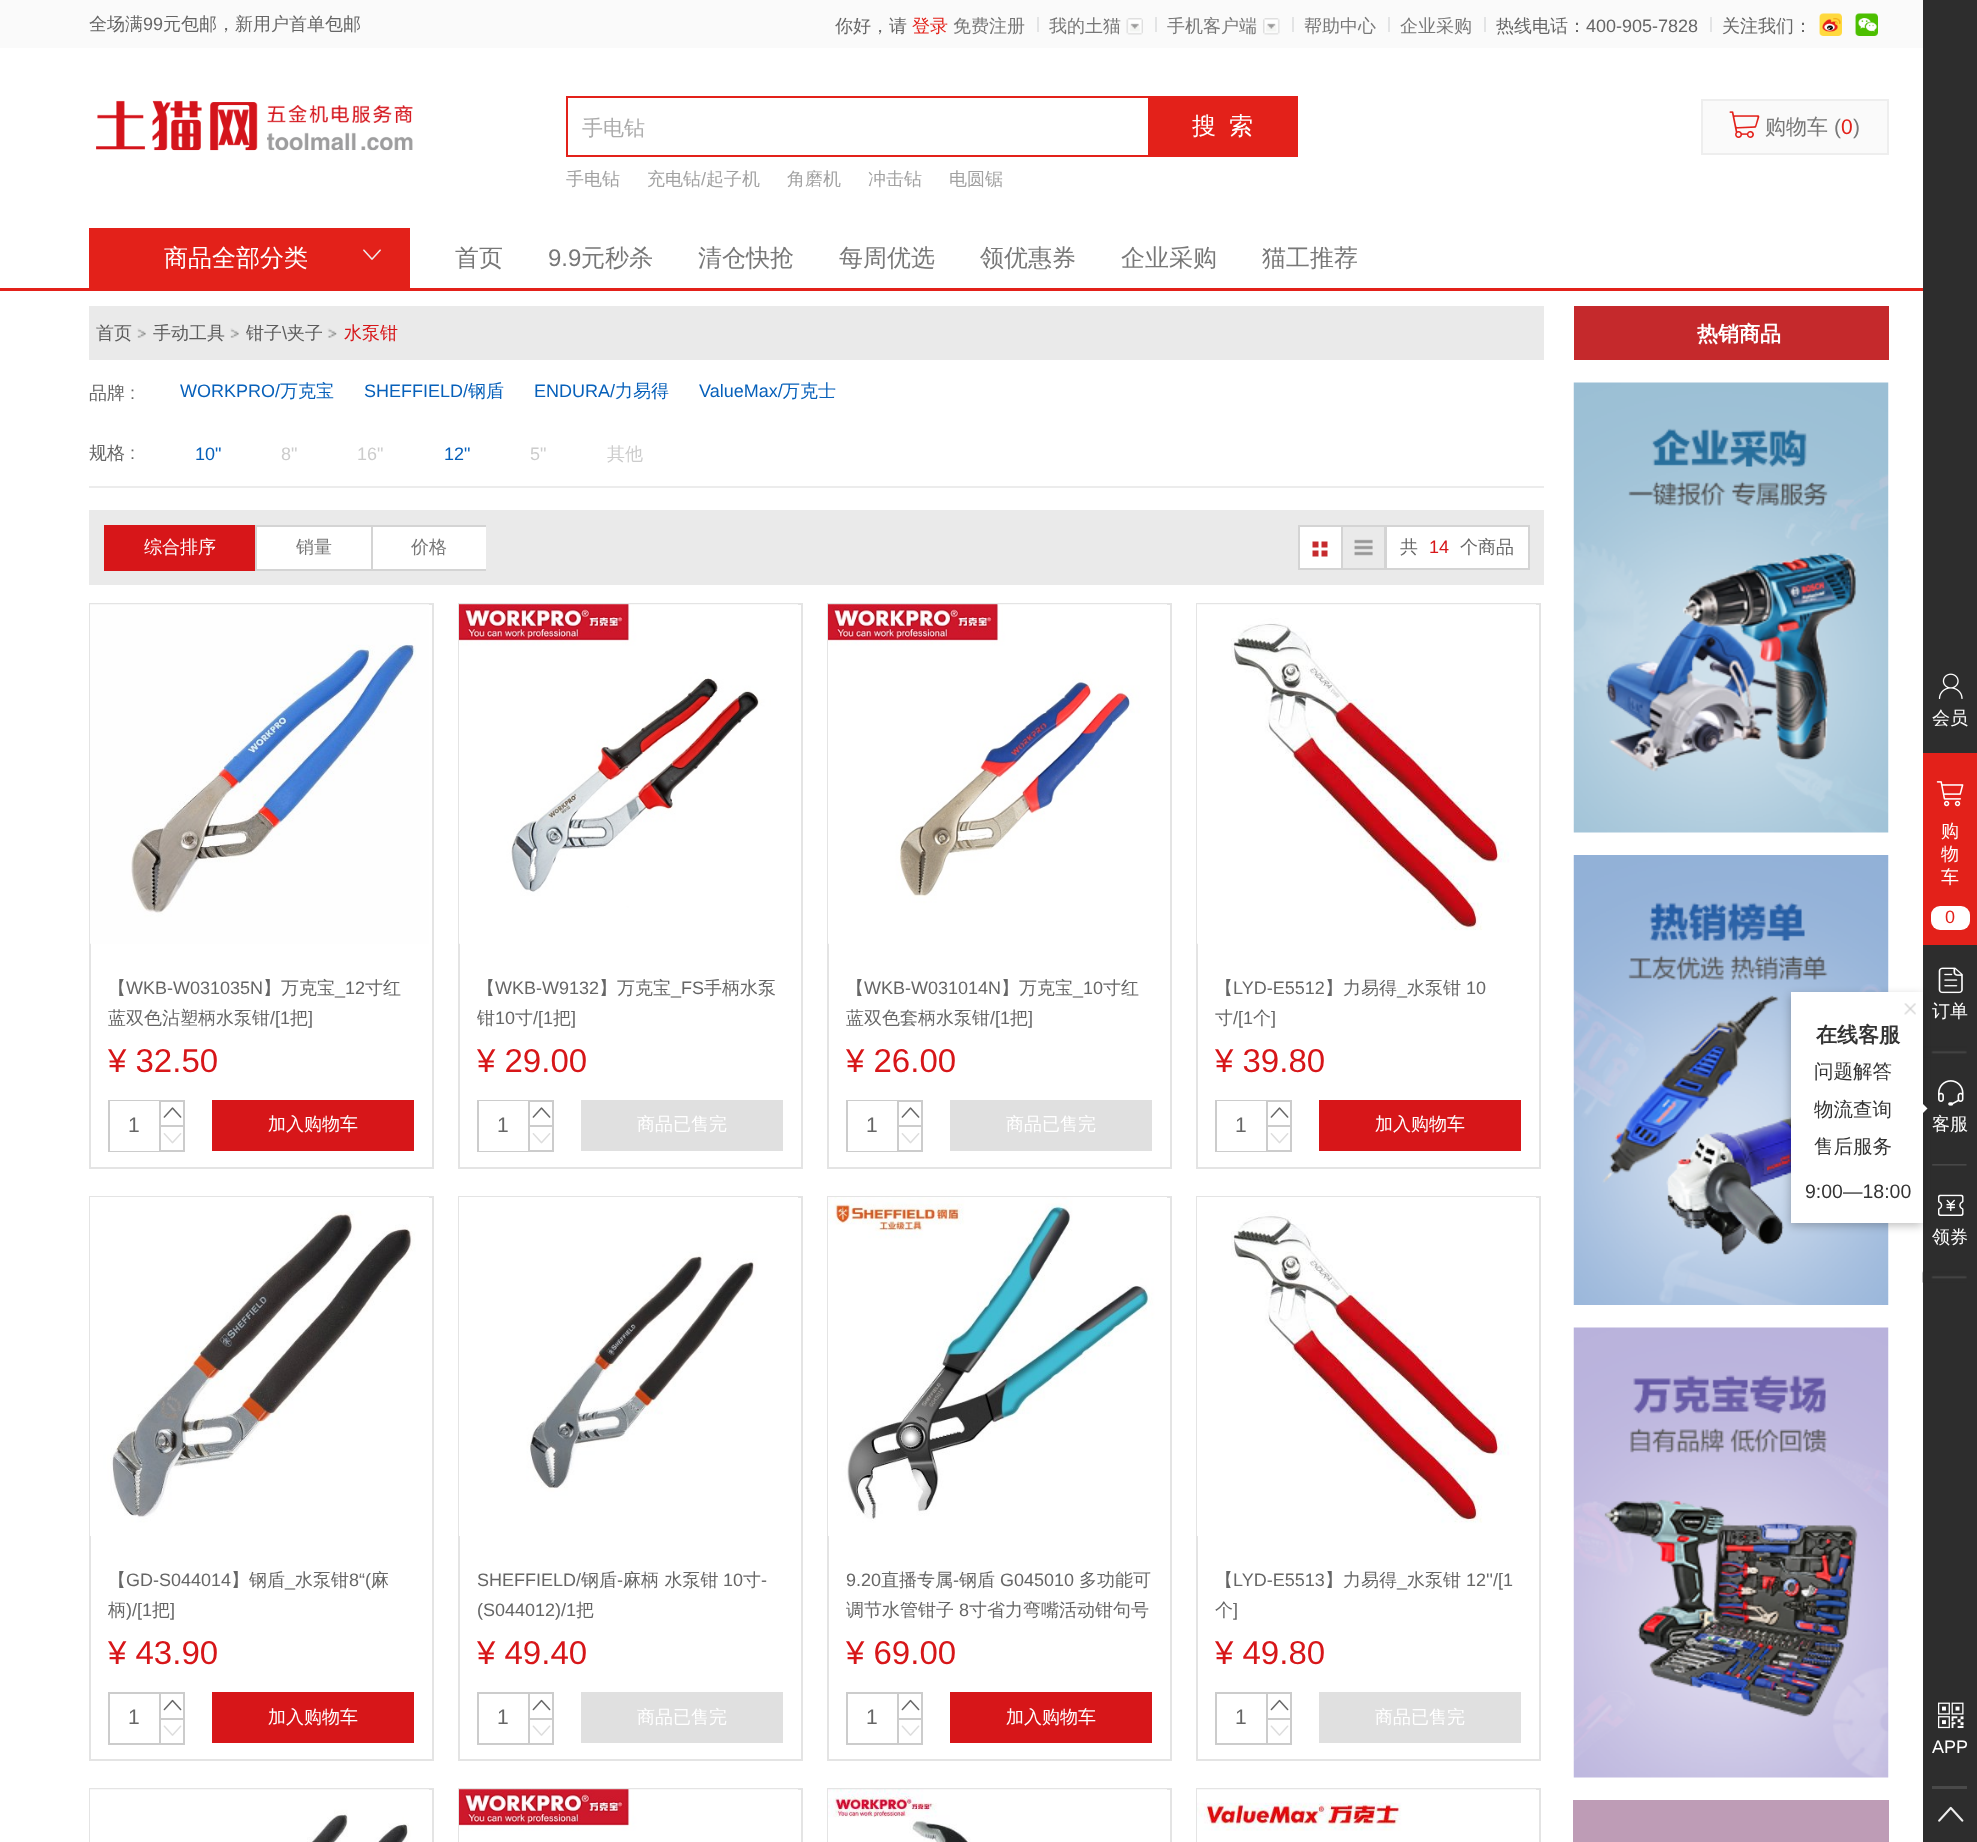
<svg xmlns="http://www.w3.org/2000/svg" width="1977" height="1842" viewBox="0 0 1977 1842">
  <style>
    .t1 { font: 500 18px WenQuanYi Zen Hei; fill: #666; }
    .t2 { font: 18px Liberation Sans; fill: #666; }
    .t3 { font: 500 18px WenQuanYi Zen Hei; fill: #e3211a; }
    .t4 { font: 500 18px WenQuanYi Zen Hei; fill: #787878; }
    .t5 { font: 500 21px WenQuanYi Zen Hei; fill: #acacac; }
    .t6 { font: 500 24px WenQuanYi Zen Hei; fill: #fff; }
    .t7 { font: 500 18px WenQuanYi Zen Hei; fill: #a2a2a2; }
    .t8 { font: 18px Liberation Sans; fill: #a2a2a2; }
    .t9 { font: 500 21px WenQuanYi Zen Hei; fill: #787878; }
    .t10 { font: 21px Liberation Sans; fill: #787878; }
    .t11 { font: 21px Liberation Sans; fill: #e3211a; }
    .t12 { font: 500 24px WenQuanYi Zen Hei; fill: #787878; }
    .t13 { font: 24px Liberation Sans; fill: #787878; }
    .t14 { font: 500 18px WenQuanYi Zen Hei; fill: #5c5c5c; }
    .t15 { font: 18px Liberation Sans; fill: #5c5c5c; }
    .t16 { font: 500 18px WenQuanYi Zen Hei; fill: #d71619; }
    .t17 { font: 18px Liberation Sans; fill: #0760ba; }
    .t18 { font: 500 18px WenQuanYi Zen Hei; fill: #0760ba; }
    .t19 { font: 18px Liberation Sans; fill: #ccc; }
    .t20 { font: 500 18px WenQuanYi Zen Hei; fill: #ccc; }
    .t21 { font: 500 18px WenQuanYi Zen Hei; fill: #fff; }
    .t22 { font: 18px Liberation Sans; fill: #d71619; }
    .t23 { font: 33px Liberation Sans; fill: #d71619; }
    .t24 { font: 21px Liberation Sans; fill: #666; }
    .t25 { font: bold 21px WenQuanYi Zen Hei; fill: #fff; }
    .t26 { font: 18px Liberation Sans; fill: #e3211a; }
    .t27 { font: bold 21px WenQuanYi Zen Hei; fill: #333; }
    .t28 { font: 500 19.5px WenQuanYi Zen Hei; fill: #333; }
    .t29 { font: 19.5px Liberation Sans; fill: #333; }
    .t30 { font: 18px Liberation Sans; fill: #fff; }
  </style>
  <rect width="100%" height="100%" fill="#fff"/>
  <rect x="0" y="0" width="1923" height="48" fill="#fafafa"/>
  <text x="89" y="30" class="t1">全场满</text>
  <text x="143" y="30" class="t2">99</text>
  <text x="163" y="30" class="t1">元包邮，新用户首单包邮</text>
  <text x="835" y="32" class="t1">你好，请</text>
  <text x="912" y="32" class="t3">登录</text>
  <text x="953" y="32" class="t4">免费注册</text>
  <rect x="1037" y="17" width="2" height="15" fill="#e3e4e5"/>
  <image x="1126" y="18" width="17" height="17" href="images/1.png"/>
  <text x="1049" y="32" class="t4">我的土猫</text>
  <rect x="1155" y="17" width="2" height="15" fill="#e3e4e5"/>
  <image x="1263" y="18" width="17" height="17" href="images/2.png"/>
  <text x="1167" y="32" class="t4">手机客户端</text>
  <rect x="1292" y="17" width="2" height="15" fill="#e3e4e5"/>
  <text x="1304" y="32" class="t4">帮助中心</text>
  <rect x="1388" y="17" width="2" height="15" fill="#e3e4e5"/>
  <text x="1400" y="32" class="t4">企业采购</text>
  <rect x="1484" y="17" width="2" height="15" fill="#e3e4e5"/>
  <text x="1496" y="32" class="t1">热线电话：</text>
  <text x="1586" y="32" class="t2">400-905-7828</text>
  <rect x="1710" y="17" width="2" height="15" fill="#e3e4e5"/>
  <text x="1722" y="32" class="t1">关注我们：</text>
  <image x="1819" y="13" width="23" height="23" href="images/3.png"/>
  <image x="1855" y="13" width="23" height="23" href="images/4.png"/>
  <image x="96" y="100" width="317" height="51" href="images/5.png"/>
  <rect x="566" y="96" width="582" height="2" fill="#e3211a"/>
  <rect x="566" y="155" width="732" height="2" fill="#e3211a"/>
  <rect x="566" y="96" width="2" height="60" fill="#e3211a"/>
  <text x="582" y="135" class="t5">手电钻</text>
  <rect x="1148" y="96" width="150" height="59" fill="#e3211a"/>
  <text x="1192" y="134" class="t6">搜</text>
  <text x="1229" y="134" class="t6">索</text>
  <text x="566" y="185" class="t7">手电钻</text>
  <text x="647" y="185" class="t7">充电钻</text>
  <text x="701" y="185" class="t8">/</text>
  <text x="706" y="185" class="t7">起子机</text>
  <text x="787" y="185" class="t7">角磨机</text>
  <text x="868" y="185" class="t7">冲击钻</text>
  <text x="949" y="185" class="t7">电圆锯</text>
  <rect x="1702" y="100" width="186" height="54" fill="#fafafa" stroke="#eee" stroke-width="2"/>
  <image x="1729" y="111" width="31" height="27" href="images/6.png"/>
  <text x="1765" y="134" class="t9">购物车</text>
  <text x="1834" y="134" class="t10">(</text>
  <text x="1841" y="134" class="t11">0</text>
  <text x="1853" y="134" class="t10">)</text>
  <rect x="0" y="288" width="1923" height="3" fill="#e3211a"/>
  <rect x="89" y="228" width="321" height="60" fill="#e3211a"/>
  <text x="164" y="266" class="t6">商品全部分类</text>
  <image x="363" y="249" width="18" height="11" href="images/7.png"/>
  <text x="455" y="266" class="t12">首页</text>
  <text x="548" y="266" class="t13">9.9</text>
  <text x="581" y="266" class="t12">元秒杀</text>
  <text x="698" y="266" class="t12">清仓快抢</text>
  <text x="839" y="266" class="t12">每周优选</text>
  <text x="980" y="266" class="t12">领优惠券</text>
  <text x="1121" y="266" class="t12">企业采购</text>
  <text x="1262" y="266" class="t12">猫工推荐</text>
  <rect x="89" y="306" width="1455" height="54" fill="#eaeaea"/>
  <image x="137" y="328" width="9" height="10" href="images/8.png"/>
  <text x="96" y="339" class="t14">首页</text>
  <image x="230" y="328" width="9" height="10" href="images/8.png"/>
  <text x="153" y="339" class="t14">手动工具</text>
  <image x="327" y="328" width="10" height="10" href="images/9.png"/>
  <text x="246" y="339" class="t14">钳子</text>
  <text x="282" y="339" class="t15">\</text>
  <text x="287" y="339" class="t14">夹子</text>
  <text x="344" y="339" class="t16">水泵钳</text>
  <text x="89" y="399" class="t1">品牌</text>
  <text x="130" y="399" class="t2">:</text>
  <text x="180" y="397" class="t17">WORKPRO/</text>
  <text x="280" y="397" class="t18">万克宝</text>
  <text x="364" y="397" class="t17">SHEFFIELD/</text>
  <text x="468" y="397" class="t18">钢盾</text>
  <text x="534" y="397" class="t17">ENDURA/</text>
  <text x="615" y="397" class="t18">力易得</text>
  <text x="699" y="397" class="t17">ValueMax/</text>
  <text x="782" y="397" class="t18">万克士</text>
  <rect x="89" y="486" width="1455" height="2" fill="#ececec"/>
  <text x="89" y="459" class="t1">规格</text>
  <text x="130" y="459" class="t2">:</text>
  <text x="195" y="460" class="t17">10"</text>
  <text x="281" y="460" class="t19">8"</text>
  <text x="357" y="460" class="t19">16"</text>
  <text x="444" y="460" class="t17">12"</text>
  <text x="530" y="460" class="t19">5"</text>
  <text x="607" y="460" class="t20">其他</text>
  <rect x="89" y="510" width="1455" height="75" fill="#eaeaea"/>
  <rect x="104" y="525" width="151" height="46" fill="#d71619"/>
  <text x="144" y="553" class="t21">综合排序</text>
  <rect x="257" y="527" width="114" height="42" fill="#fff"/>
  <rect x="255" y="525" width="231" height="2" fill="#d4d4d4"/>
  <rect x="255" y="569" width="231" height="2" fill="#d4d4d4"/>
  <rect x="255" y="525" width="2" height="45" fill="#d4d4d4"/>
  <text x="296" y="553" class="t4">销量</text>
  <rect x="373" y="527" width="113" height="42" fill="#fff"/>
  <rect x="371" y="525" width="2" height="45" fill="#d4d4d4"/>
  <text x="411" y="553" class="t4">价格</text>
  <rect x="1300" y="527" width="41" height="41" fill="#fff"/>
  <image x="1312" y="541" width="16" height="16" href="images/10.png"/>
  <image x="1354" y="539" width="19" height="17" href="images/11.png"/>
  <rect x="1386" y="526" width="143" height="43" fill="#fff" stroke="#d4d4d4" stroke-width="2"/>
  <rect x="1342" y="526" width="43" height="43" fill="none" stroke="#d4d4d4" stroke-width="2"/>
  <rect x="1299" y="526" width="43" height="43" fill="none" stroke="#d4d4d4" stroke-width="2"/>
  <text x="1400" y="553" class="t1">共</text>
  <text x="1429" y="553" class="t22">14</text>
  <text x="1460" y="553" class="t1">个商品</text>
  <rect x="90" y="604" width="343" height="564" fill="none" stroke="#e4e4e4" stroke-width="2"/>
  <image x="90" y="604" width="339" height="340" href="images/12.png"/>
  <image x="90" y="604" width="339" height="340" href="images/13.png"/>
  <text x="108" y="994" class="t1">【</text>
  <text x="126" y="994" class="t2">WKB-W031035N</text>
  <text x="263" y="994" class="t1">】万克宝</text>
  <text x="335" y="994" class="t2">_12</text>
  <text x="365" y="994" class="t1">寸红</text>
  <text x="108" y="1024" class="t1">蓝双色沾塑柄水泵钳</text>
  <text x="270" y="1024" class="t2">/[1</text>
  <text x="290" y="1024" class="t1">把</text>
  <text x="308" y="1024" class="t2">]</text>
  <text x="108" y="1072" class="t23">¥ 32.50</text>
  <rect x="109" y="1101" width="75" height="50" fill="none" stroke="#ccc" stroke-width="2"/>
  <rect x="110" y="1101" width="49" height="50" fill="#fff"/>
  <text x="128" y="1132" class="t24">1</text>
  <rect x="159" y="1125" width="24" height="2" fill="#ccc"/>
  <rect x="159" y="1101" width="2" height="50" fill="#ccc"/>
  <image x="163" y="1107" width="19" height="11" href="images/14.png"/>
  <image x="163" y="1133" width="19" height="11" href="images/15.png"/>
  <rect x="212" y="1100" width="202" height="51" fill="#d71619"/>
  <text x="268" y="1130" class="t21">加入购物车</text>
  <rect x="459" y="604" width="343" height="564" fill="none" stroke="#e4e4e4" stroke-width="2"/>
  <image x="459" y="604" width="339" height="340" href="images/16.png"/>
  <image x="459" y="604" width="339" height="340" href="images/17.png"/>
  <text x="477" y="994" class="t1">【</text>
  <text x="495" y="994" class="t2">WKB-W9132</text>
  <text x="599" y="994" class="t1">】万克宝</text>
  <text x="671" y="994" class="t2">_FS</text>
  <text x="704" y="994" class="t1">手柄水泵</text>
  <text x="477" y="1024" class="t1">钳</text>
  <text x="495" y="1024" class="t2">10</text>
  <text x="515" y="1024" class="t1">寸</text>
  <text x="533" y="1024" class="t2">/[1</text>
  <text x="553" y="1024" class="t1">把</text>
  <text x="571" y="1024" class="t2">]</text>
  <text x="477" y="1072" class="t23">¥ 29.00</text>
  <rect x="478" y="1101" width="75" height="50" fill="none" stroke="#ccc" stroke-width="2"/>
  <rect x="479" y="1101" width="49" height="50" fill="#fff"/>
  <text x="497" y="1132" class="t24">1</text>
  <rect x="528" y="1125" width="24" height="2" fill="#ccc"/>
  <rect x="528" y="1101" width="2" height="50" fill="#ccc"/>
  <image x="532" y="1107" width="19" height="11" href="images/14.png"/>
  <image x="532" y="1133" width="19" height="11" href="images/15.png"/>
  <rect x="581" y="1100" width="202" height="51" fill="#e0e0e0"/>
  <text x="637" y="1130" class="t21">商品已售完</text>
  <rect x="828" y="604" width="343" height="564" fill="none" stroke="#e4e4e4" stroke-width="2"/>
  <image x="828" y="604" width="339" height="340" href="images/18.png"/>
  <image x="828" y="604" width="339" height="340" href="images/19.png"/>
  <text x="846" y="994" class="t1">【</text>
  <text x="864" y="994" class="t2">WKB-W031014N</text>
  <text x="1001" y="994" class="t1">】万克宝</text>
  <text x="1073" y="994" class="t2">_10</text>
  <text x="1103" y="994" class="t1">寸红</text>
  <text x="846" y="1024" class="t1">蓝双色套柄水泵钳</text>
  <text x="990" y="1024" class="t2">/[1</text>
  <text x="1010" y="1024" class="t1">把</text>
  <text x="1028" y="1024" class="t2">]</text>
  <text x="846" y="1072" class="t23">¥ 26.00</text>
  <rect x="847" y="1101" width="75" height="50" fill="none" stroke="#ccc" stroke-width="2"/>
  <rect x="848" y="1101" width="49" height="50" fill="#fff"/>
  <text x="866" y="1132" class="t24">1</text>
  <rect x="897" y="1125" width="24" height="2" fill="#ccc"/>
  <rect x="897" y="1101" width="2" height="50" fill="#ccc"/>
  <image x="901" y="1107" width="19" height="11" href="images/14.png"/>
  <image x="901" y="1133" width="19" height="11" href="images/15.png"/>
  <rect x="950" y="1100" width="202" height="51" fill="#e0e0e0"/>
  <text x="1006" y="1130" class="t21">商品已售完</text>
  <rect x="1197" y="604" width="343" height="564" fill="none" stroke="#e4e4e4" stroke-width="2"/>
  <image x="1197" y="604" width="339" height="340" href="images/20.png"/>
  <image x="1197" y="604" width="339" height="340" href="images/21.png"/>
  <text x="1215" y="994" class="t1">【</text>
  <text x="1233" y="994" class="t2">LYD-E5512</text>
  <text x="1325" y="994" class="t1">】力易得</text>
  <text x="1397" y="994" class="t2">_</text>
  <text x="1407" y="994" class="t1">水泵钳</text>
  <text x="1466" y="994" class="t2">10</text>
  <text x="1215" y="1024" class="t1">寸</text>
  <text x="1233" y="1024" class="t2">/[1</text>
  <text x="1253" y="1024" class="t1">个</text>
  <text x="1271" y="1024" class="t2">]</text>
  <text x="1215" y="1072" class="t23">¥ 39.80</text>
  <rect x="1216" y="1101" width="75" height="50" fill="none" stroke="#ccc" stroke-width="2"/>
  <rect x="1217" y="1101" width="49" height="50" fill="#fff"/>
  <text x="1235" y="1132" class="t24">1</text>
  <rect x="1266" y="1125" width="24" height="2" fill="#ccc"/>
  <rect x="1266" y="1101" width="2" height="50" fill="#ccc"/>
  <image x="1270" y="1107" width="19" height="11" href="images/14.png"/>
  <image x="1270" y="1133" width="19" height="11" href="images/15.png"/>
  <rect x="1319" y="1100" width="202" height="51" fill="#d71619"/>
  <text x="1375" y="1130" class="t21">加入购物车</text>
  <rect x="90" y="1197" width="343" height="563" fill="none" stroke="#e4e4e4" stroke-width="2"/>
  <image x="90" y="1197" width="339" height="339" href="images/22.png"/>
  <text x="108" y="1586" class="t1">【</text>
  <text x="126" y="1586" class="t2">GD-S044014</text>
  <text x="231" y="1586" class="t1">】钢盾</text>
  <text x="285" y="1586" class="t2">_</text>
  <text x="295" y="1586" class="t1">水泵钳</text>
  <text x="349" y="1586" class="t2">8“(</text>
  <text x="371" y="1586" class="t1">麻</text>
  <text x="108" y="1616" class="t1">柄</text>
  <text x="126" y="1616" class="t2">)/[1</text>
  <text x="152" y="1616" class="t1">把</text>
  <text x="170" y="1616" class="t2">]</text>
  <text x="108" y="1664" class="t23">¥ 43.90</text>
  <rect x="109" y="1693" width="75" height="51" fill="none" stroke="#ccc" stroke-width="2"/>
  <text x="128" y="1724" class="t24">1</text>
  <rect x="159" y="1718" width="24" height="2" fill="#ccc"/>
  <rect x="159" y="1694" width="2" height="49" fill="#ccc"/>
  <image x="163" y="1699" width="19" height="12" href="images/23.png"/>
  <image x="163" y="1725" width="19" height="11" href="images/24.png"/>
  <rect x="212" y="1692" width="202" height="51" fill="#d71619"/>
  <text x="268" y="1723" class="t21">加入购物车</text>
  <rect x="459" y="1197" width="343" height="563" fill="none" stroke="#e4e4e4" stroke-width="2"/>
  <image x="459" y="1197" width="339" height="339" href="images/25.png"/>
  <text x="477" y="1586" class="t2">SHEFFIELD/</text>
  <text x="581" y="1586" class="t1">钢盾</text>
  <text x="617" y="1586" class="t2">-</text>
  <text x="623" y="1586" class="t1">麻柄 水泵钳</text>
  <text x="723" y="1586" class="t2">10</text>
  <text x="743" y="1586" class="t1">寸</text>
  <text x="761" y="1586" class="t2">-</text>
  <text x="477" y="1616" class="t2">(S044012)/1</text>
  <text x="576" y="1616" class="t1">把</text>
  <text x="477" y="1664" class="t23">¥ 49.40</text>
  <rect x="478" y="1693" width="75" height="51" fill="none" stroke="#ccc" stroke-width="2"/>
  <text x="497" y="1724" class="t24">1</text>
  <rect x="528" y="1718" width="24" height="2" fill="#ccc"/>
  <rect x="528" y="1694" width="2" height="49" fill="#ccc"/>
  <image x="532" y="1699" width="19" height="12" href="images/23.png"/>
  <image x="532" y="1725" width="19" height="11" href="images/24.png"/>
  <rect x="581" y="1692" width="202" height="51" fill="#e0e0e0"/>
  <text x="637" y="1723" class="t21">商品已售完</text>
  <rect x="828" y="1197" width="343" height="563" fill="none" stroke="#e4e4e4" stroke-width="2"/>
  <image x="828" y="1197" width="339" height="339" href="images/26.png"/>
  <text x="846" y="1586" class="t2">9.20</text>
  <text x="881" y="1586" class="t1">直播专属</text>
  <text x="953" y="1586" class="t2">-</text>
  <text x="959" y="1586" class="t1">钢盾</text>
  <text x="1000" y="1586" class="t2">G045010</text>
  <text x="1079" y="1586" class="t1">多功能可</text>
  <text x="846" y="1616" class="t1">调节水管钳子</text>
  <text x="959" y="1616" class="t2">8</text>
  <text x="969" y="1616" class="t1">寸省力弯嘴活动钳句号</text>
  <text x="846" y="1664" class="t23">¥ 69.00</text>
  <rect x="847" y="1693" width="75" height="51" fill="none" stroke="#ccc" stroke-width="2"/>
  <text x="866" y="1724" class="t24">1</text>
  <rect x="897" y="1718" width="24" height="2" fill="#ccc"/>
  <rect x="897" y="1694" width="2" height="49" fill="#ccc"/>
  <image x="901" y="1699" width="19" height="12" href="images/23.png"/>
  <image x="901" y="1725" width="19" height="11" href="images/24.png"/>
  <rect x="950" y="1692" width="202" height="51" fill="#d71619"/>
  <text x="1006" y="1723" class="t21">加入购物车</text>
  <rect x="1197" y="1197" width="343" height="563" fill="none" stroke="#e4e4e4" stroke-width="2"/>
  <image x="1197" y="1197" width="339" height="339" href="images/27.png"/>
  <text x="1215" y="1586" class="t1">【</text>
  <text x="1233" y="1586" class="t2">LYD-E5513</text>
  <text x="1325" y="1586" class="t1">】力易得</text>
  <text x="1397" y="1586" class="t2">_</text>
  <text x="1407" y="1586" class="t1">水泵钳</text>
  <text x="1466" y="1586" class="t2">12''/[1</text>
  <text x="1215" y="1616" class="t1">个</text>
  <text x="1233" y="1616" class="t2">]</text>
  <text x="1215" y="1664" class="t23">¥ 49.80</text>
  <rect x="1216" y="1693" width="75" height="51" fill="none" stroke="#ccc" stroke-width="2"/>
  <text x="1235" y="1724" class="t24">1</text>
  <rect x="1266" y="1718" width="24" height="2" fill="#ccc"/>
  <rect x="1266" y="1694" width="2" height="49" fill="#ccc"/>
  <image x="1270" y="1699" width="19" height="12" href="images/23.png"/>
  <image x="1270" y="1725" width="19" height="11" href="images/24.png"/>
  <rect x="1319" y="1692" width="202" height="51" fill="#e0e0e0"/>
  <text x="1375" y="1723" class="t21">商品已售完</text>
  <rect x="90" y="1789" width="343" height="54" fill="none" stroke="#e4e4e4" stroke-width="2"/>
  <image x="90" y="1790" width="339" height="52" href="images/28.png"/>
  <rect x="90" y="1789" width="339" height="1" fill="#f8f8f8"/>
  <rect x="459" y="1789" width="343" height="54" fill="none" stroke="#e4e4e4" stroke-width="2"/>
  <image x="459" y="1789" width="339" height="53" href="images/29.png"/>
  <image x="459" y="1789" width="339" height="1" href="images/30.png"/>
  <rect x="828" y="1789" width="343" height="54" fill="none" stroke="#e4e4e4" stroke-width="2"/>
  <image x="828" y="1789" width="339" height="53" href="images/31.png"/>
  <image x="828" y="1789" width="339" height="1" href="images/32.png"/>
  <rect x="1197" y="1789" width="343" height="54" fill="none" stroke="#e4e4e4" stroke-width="2"/>
  <image x="1197" y="1790" width="339" height="52" href="images/33.png"/>
  <rect x="1197" y="1789" width="339" height="1" fill="#f8f8f8"/>
  <rect x="1574" y="306" width="315" height="54" fill="#c5292c"/>
  <text x="1697" y="341" class="t25">热销商品</text>
  <image x="1573" y="382" width="316" height="451" href="images/34.png"/>
  <image x="1573" y="855" width="316" height="450" href="images/35.png"/>
  <image x="1573" y="1327" width="316" height="451" href="images/36.png"/>
  <rect x="1573" y="1800" width="316" height="42" fill="#be9cb6"/>
  <rect x="1923" y="0" width="54" height="1842" fill="#2d2d2d"/>
  <image x="1938" y="673" width="25" height="26" href="images/37.png"/>
  <text x="1932" y="724" class="t21">会员</text>
  <rect x="1923" y="753" width="54" height="192" fill="#e3211a"/>
  <image x="1936" y="781" width="28" height="26" href="images/38.png"/>
  <text x="1941" y="837" class="t21">购</text>
  <text x="1941" y="860" class="t21">物</text>
  <text x="1941" y="883" class="t21">车</text>
  <rect x="1931" y="906" width="39" height="24" rx="9" fill="#fff"/>
  <text x="1945" y="923" class="t26">0</text>
  <image x="1923" y="1046" width="44" height="12" href="images/39.png"/>
  <image x="1938" y="967" width="25" height="27" href="images/40.png"/>
  <text x="1932" y="1017" class="t21">订单</text>
  <image x="1932" y="1164" width="35" height="2" href="images/41.png"/>
  <rect x="1790" y="995" width="132" height="231" fill="#0000003d" filter="blur(4px)"/>
  <rect x="1791" y="992" width="132" height="231" fill="#fff"/>
  <image x="1904" y="1003" width="12" height="12" href="images/42.png"/>
  <text x="1816" y="1042" class="t27">在线客服</text>
  <text x="1814" y="1078" class="t28">问题解答</text>
  <text x="1814" y="1116" class="t28">物流查询</text>
  <path d="M1923 1113V1104L1927.5 1108.5Z" fill="#fff"/>
  <text x="1814" y="1153" class="t28">售后服务</text>
  <text x="1805" y="1198" class="t29">9:00—18:00</text>
  <image x="1938" y="1080" width="26" height="26" href="images/43.png"/>
  <text x="1932" y="1130" class="t21">客服</text>
  <image x="1922" y="1271" width="45" height="12" href="images/44.png"/>
  <image x="1938" y="1194" width="26" height="22" href="images/45.png"/>
  <text x="1932" y="1243" class="t21">领券</text>
  <rect x="1932" y="1786" width="35" height="3" fill="#494949"/>
  <image x="1938" y="1702" width="26" height="27" href="images/46.png"/>
  <text x="1932" y="1753" class="t30">APP</text>
  <image x="1938" y="1806" width="26" height="16" href="images/47.png"/>
</svg>
